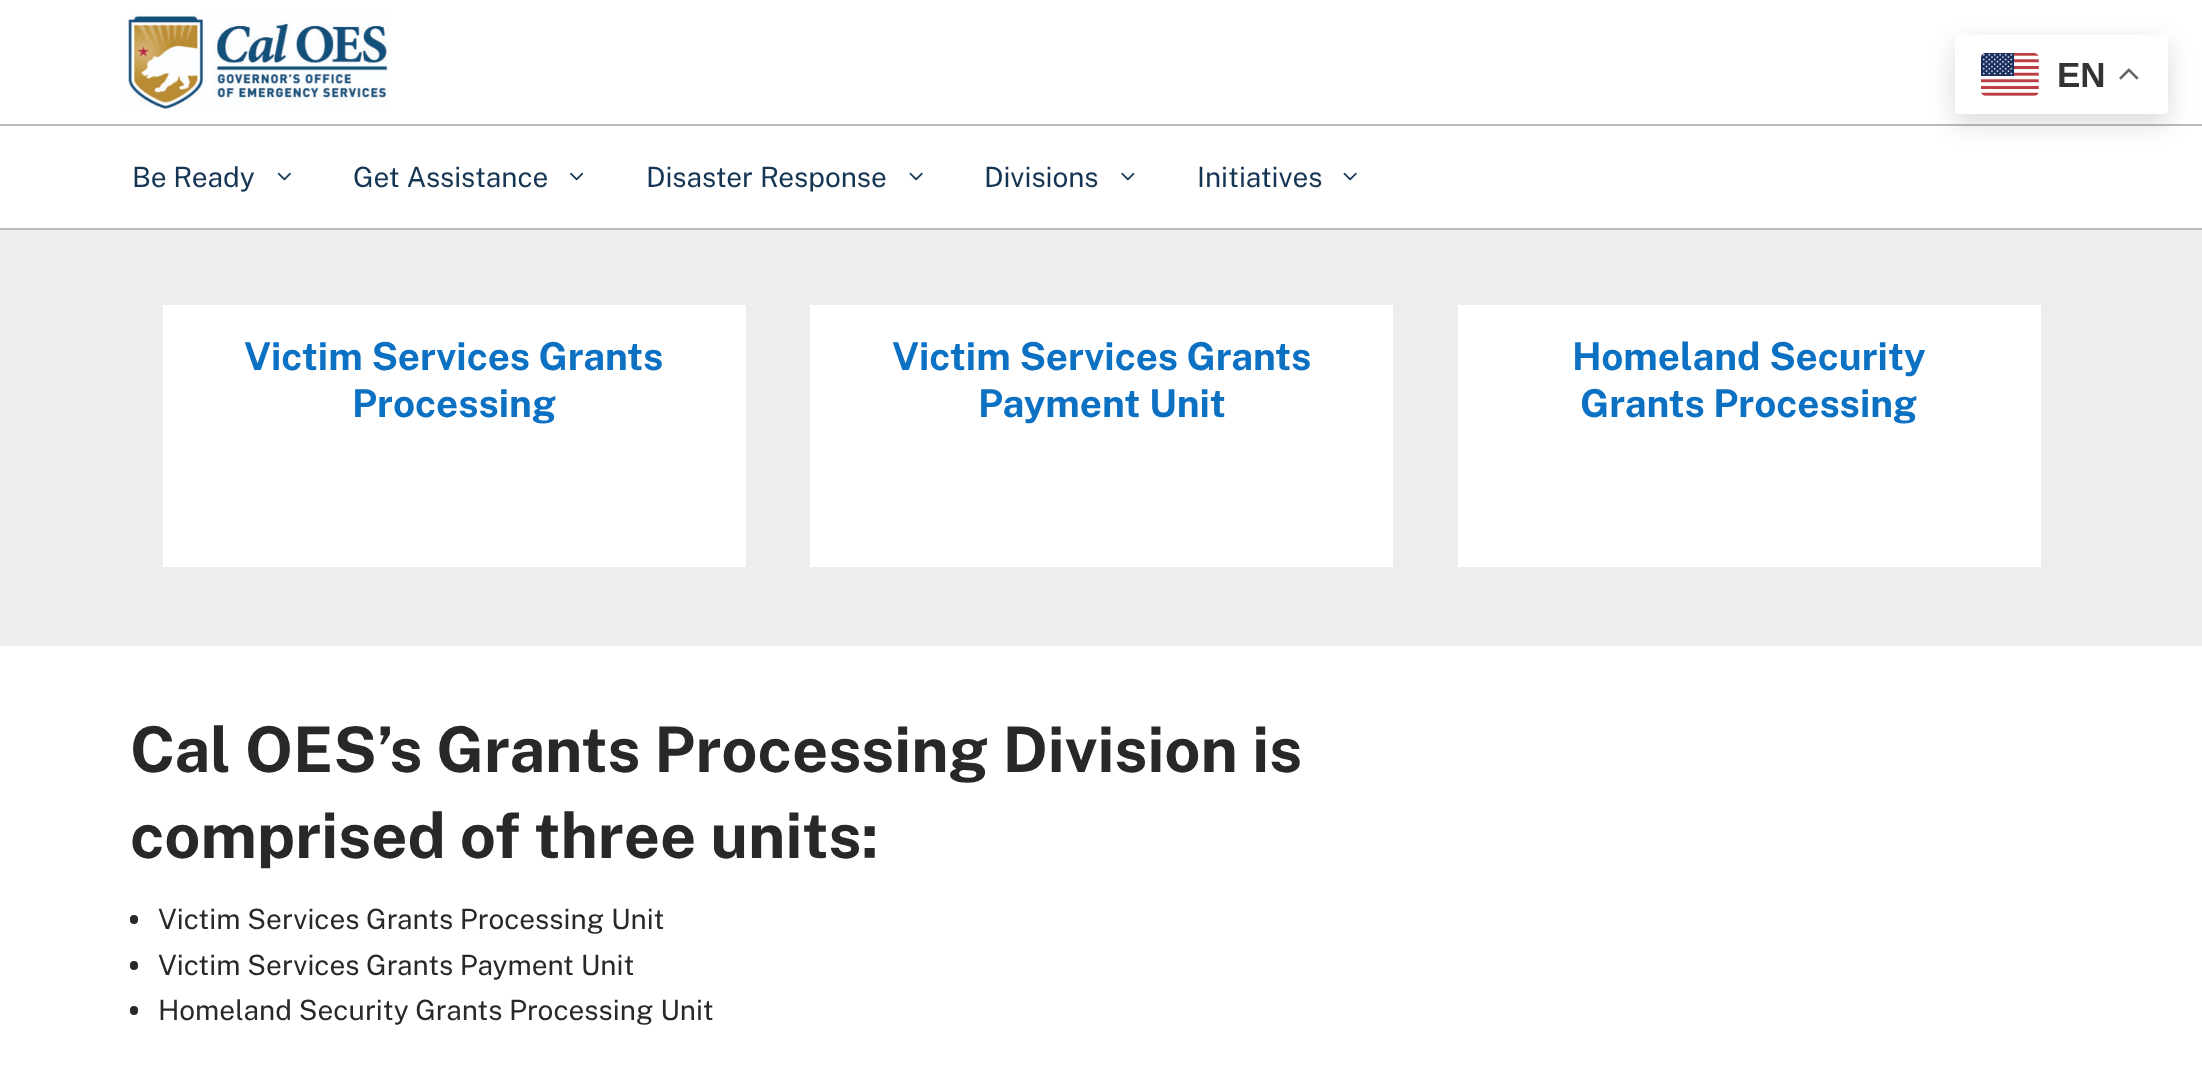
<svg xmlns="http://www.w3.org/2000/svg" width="2202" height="1092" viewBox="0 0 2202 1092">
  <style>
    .t1 { font: bold 35px Liberation Sans; fill: #333; }
    .t2 { font: 28px Public Sans; fill: #153554; }
    .t3 { font: bold 38.5px Public Sans; fill: #0c71c3; }
    .t4 { font: bold 63px Public Sans; fill: #282828; }
    .t5 { font: 28px Public Sans; fill: #282828; }
  </style>
  <rect width="100%" height="100%" fill="#fff"/>
  <rect x="0" y="124" width="2202" height="2" fill="#bcbbc1"/>
  <rect x="1955" y="44" width="213" height="79" rx="4" fill="#00000026" filter="blur(13px)"/>
  <rect x="1955" y="35" width="213" height="79" rx="4" fill="#fff"/>
  <image x="1981" y="53" width="58" height="43" href="images/1.png"/>
  <text x="2057" y="87" class="t1">EN</text>
  <image x="2119" y="68" width="20" height="12" href="images/2.png"/>
  <image x="126" y="14" width="264" height="95" href="images/3.png"/>
  <rect x="0" y="228" width="2202" height="2" fill="#bcbbc1"/>
  <text x="132" y="187" class="t2">Be Ready</text>
  <image x="277" y="172" width="14" height="9" href="images/4.png"/>
  <text x="353" y="187" class="t2">Get Assistance</text>
  <image x="570" y="172" width="14" height="9" href="images/5.png"/>
  <text x="646" y="187" class="t2">Disaster Response</text>
  <image x="909" y="172" width="14" height="9" href="images/6.png"/>
  <text x="984" y="187" class="t2">Divisions</text>
  <image x="1121" y="172" width="14" height="9" href="images/7.png"/>
  <text x="1197" y="187" class="t2">Initiatives</text>
  <image x="1343" y="172" width="14" height="9" href="images/6.png"/>
  <rect x="0" y="230" width="2202" height="416" fill="#ededed"/>
  <rect x="163" y="305" width="583" height="262" fill="#fff"/>
  <text x="244" y="370" class="t3">Victim Services Grants</text>
  <text x="352" y="417" class="t3">Processing</text>
  <rect x="810" y="305" width="583" height="262" fill="#fff"/>
  <text x="892" y="370" class="t3">Victim Services Grants</text>
  <text x="978" y="417" class="t3">Payment Unit</text>
  <rect x="1458" y="305" width="583" height="262" fill="#fff"/>
  <text x="1572" y="370" class="t3">Homeland Security</text>
  <text x="1580" y="417" class="t3">Grants Processing</text>
  <text x="130" y="772" class="t4">Cal OES’s Grants Processing Division is</text>
  <text x="130" y="858" class="t4">comprised of three units:</text>
  <rect x="130" y="915" width="8" height="9" rx="4" fill="#282828"/>
  <text x="158" y="929" class="t5">Victim Services Grants Processing Unit</text>
  <rect x="130" y="961" width="8" height="9" rx="4" fill="#282828"/>
  <text x="158" y="975" class="t5">Victim Services Grants Payment Unit</text>
  <rect x="130" y="1006" width="8" height="9" rx="4" fill="#282828"/>
  <text x="158" y="1020" class="t5">Homeland Security Grants Processing Unit</text>
</svg>
